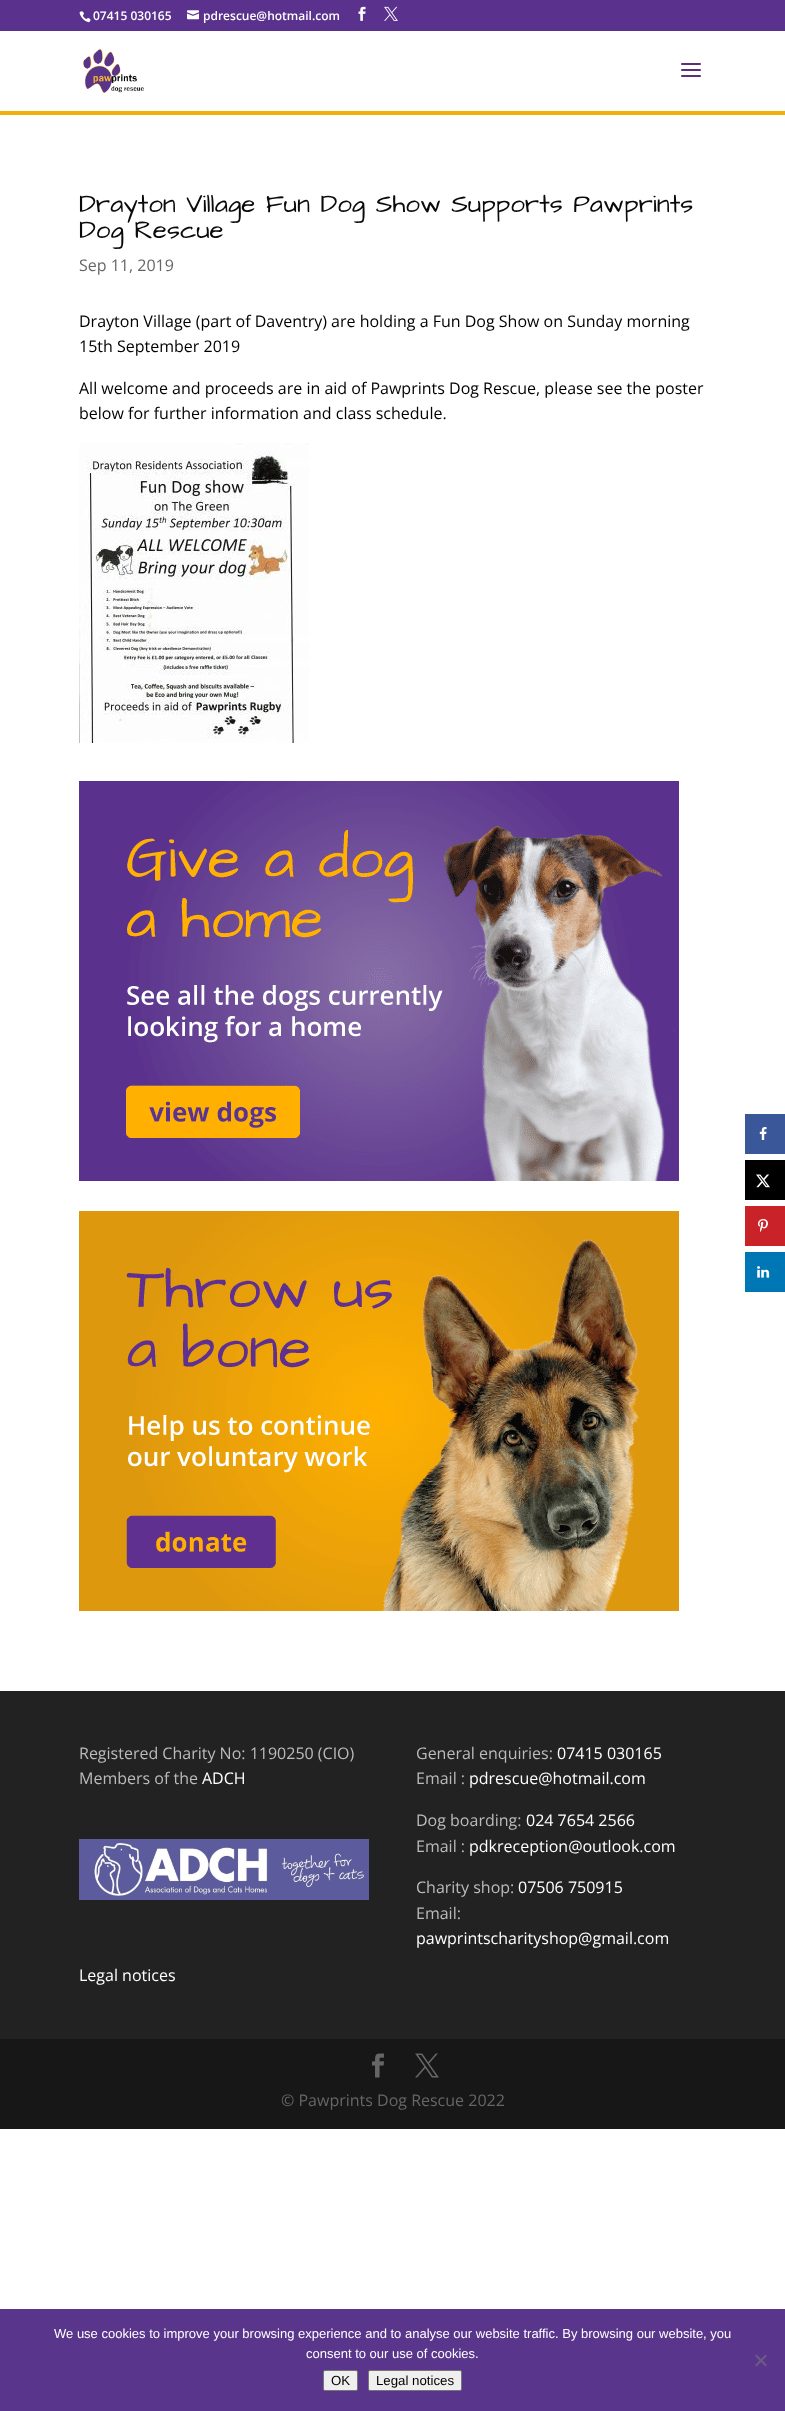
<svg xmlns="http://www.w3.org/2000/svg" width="785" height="2411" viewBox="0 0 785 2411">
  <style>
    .t1 { font: 600 12px Open Sans; fill: #fff; }
    .t2 { font: 26px Architects Daughter; fill: #0a0a0a; }
    .t3 { font: 16px Open Sans; fill: #666; }
    .t4 { font: 16px Open Sans; fill: #000; }
    .t5 { font: 16px Open Sans; fill: #bbb; }
    .t6 { font: 16px Open Sans; fill: #fff; }
    .t7 { font: 13px Liberation Sans; fill: #fff; }
    .t8 { font: 13.25px Liberation Sans; fill: #000; }
  </style>
  <rect width="100%" height="100%" fill="#fff"/>
  <rect x="0" y="0" width="785" height="31" fill="#5a328d"/>
  <image x="79" y="11" width="12" height="12" href="images/1.png"/>
  <text x="93" y="20" class="t1">07415 030165</text>
  <image x="187" y="10" width="12" height="10" href="images/2.png"/>
  <text x="203" y="20" class="t1">pdrescue@hotmail.com</text>
  <image x="358" y="6" width="8" height="15" href="images/3.png"/>
  <image x="384" y="6" width="14" height="15" href="images/4.png"/>
  <rect x="0" y="111" width="785" height="4" fill="#f0b00b"/>
  <image x="83" y="49" width="61" height="44" href="images/5.png"/>
  <image x="681" y="63" width="20" height="14" href="images/6.png"/>
  <text x="79" y="212" class="t2">Drayton Village Fun Dog Show Supports Pawprints</text>
  <text x="79" y="238" class="t2">Dog Rescue</text>
  <text x="79" y="271" class="t3">Sep 11, 2019</text>
  <text x="79" y="327" class="t4">Drayton Village (part of Daventry) are holding a Fun Dog Show on Sunday morning</text>
  <text x="79" y="352" class="t4">15th September 2019</text>
  <text x="79" y="394" class="t4">All welcome and proceeds are in aid of Pawprints Dog Rescue, please see the poster</text>
  <text x="79" y="419" class="t4">below for further information and class schedule.</text>
  <image x="79" y="443" width="230" height="300" href="images/7.png"/>
  <image x="79" y="781" width="600" height="400" href="images/8.png"/>
  <image x="79" y="1211" width="600" height="400" href="images/9.png"/>
  <rect x="0" y="1691" width="785" height="348" fill="#222"/>
  <text x="79" y="1759" class="t5">Registered Charity No: 1190250 (CIO)</text>
  <text x="79" y="1784" class="t5">Members of the</text>
  <text x="202" y="1784" class="t6">ADCH</text>
  <image x="79" y="1839" width="290" height="61" href="images/10.png"/>
  <text x="416" y="1759" class="t5">General enquiries:</text>
  <text x="557" y="1759" class="t6">07415 030165</text>
  <text x="416" y="1784" class="t5">Email :</text>
  <text x="469" y="1784" class="t6">pdrescue@hotmail.com</text>
  <text x="416" y="1826" class="t5">Dog boarding:</text>
  <text x="526" y="1826" class="t6">024 7654 2566</text>
  <text x="416" y="1852" class="t5">Email :</text>
  <text x="469" y="1852" class="t6">pdkreception@outlook.com</text>
  <text x="416" y="1893" class="t5">Charity shop:</text>
  <text x="518" y="1893" class="t6">07506 750915</text>
  <text x="416" y="1919" class="t5">Email:</text>
  <text x="416" y="1944" class="t6">pawprintscharityshop@gmail.com</text>
  <text x="79" y="1981" class="t6">Legal notices</text>
  <rect x="0" y="2039" width="785" height="90" fill="#171717"/>
  <image x="372" y="2053" width="12" height="25" href="images/11.png"/>
  <image x="415" y="2053" width="24" height="25" href="images/12.png"/>
  <text x="281" y="2106" class="t3">© Pawprints Dog Rescue 2022</text>
  <rect x="745" y="1114" width="40" height="40" fill="#3a579a"/>
  <image x="759" y="1127" width="8" height="13" href="images/13.png"/>
  <rect x="745" y="1160" width="40" height="40" fill="#000"/>
  <image x="756" y="1174" width="14" height="14" href="images/14.png"/>
  <rect x="745" y="1206" width="40" height="40" fill="#c92228"/>
  <image x="758" y="1219" width="10" height="13" href="images/15.png"/>
  <rect x="745" y="1252" width="40" height="40" fill="#0077b5"/>
  <image x="757" y="1266" width="13" height="12" href="images/16.png"/>
  <rect x="0" y="2309" width="785" height="102" fill="#59358b"/>
  <text x="54" y="2338" class="t7">We use cookies to improve your browsing experience and to analyse our website traffic. By browsing our website, you</text>
  <text x="306" y="2358" class="t7">consent to our use of cookies.</text>
  <path d="M765.5 2354.5L767 2356L756.5 2366.5L755 2365Z" fill="#6d5b86"/>
  <path d="M755 2356L756.5 2354.5L767 2365L765.5 2366.5Z" fill="#6d5b86"/>
  <rect x="323.5" y="2370.5" width="34" height="20" rx="1.5" fill="#efefef" stroke="#767676"/>
  <text x="331" y="2385" class="t8">OK</text>
  <rect x="368.5" y="2370.5" width="93" height="20" rx="1.5" fill="#efefef" stroke="#767676"/>
  <text x="376" y="2385" class="t8">Legal notices</text>
</svg>
